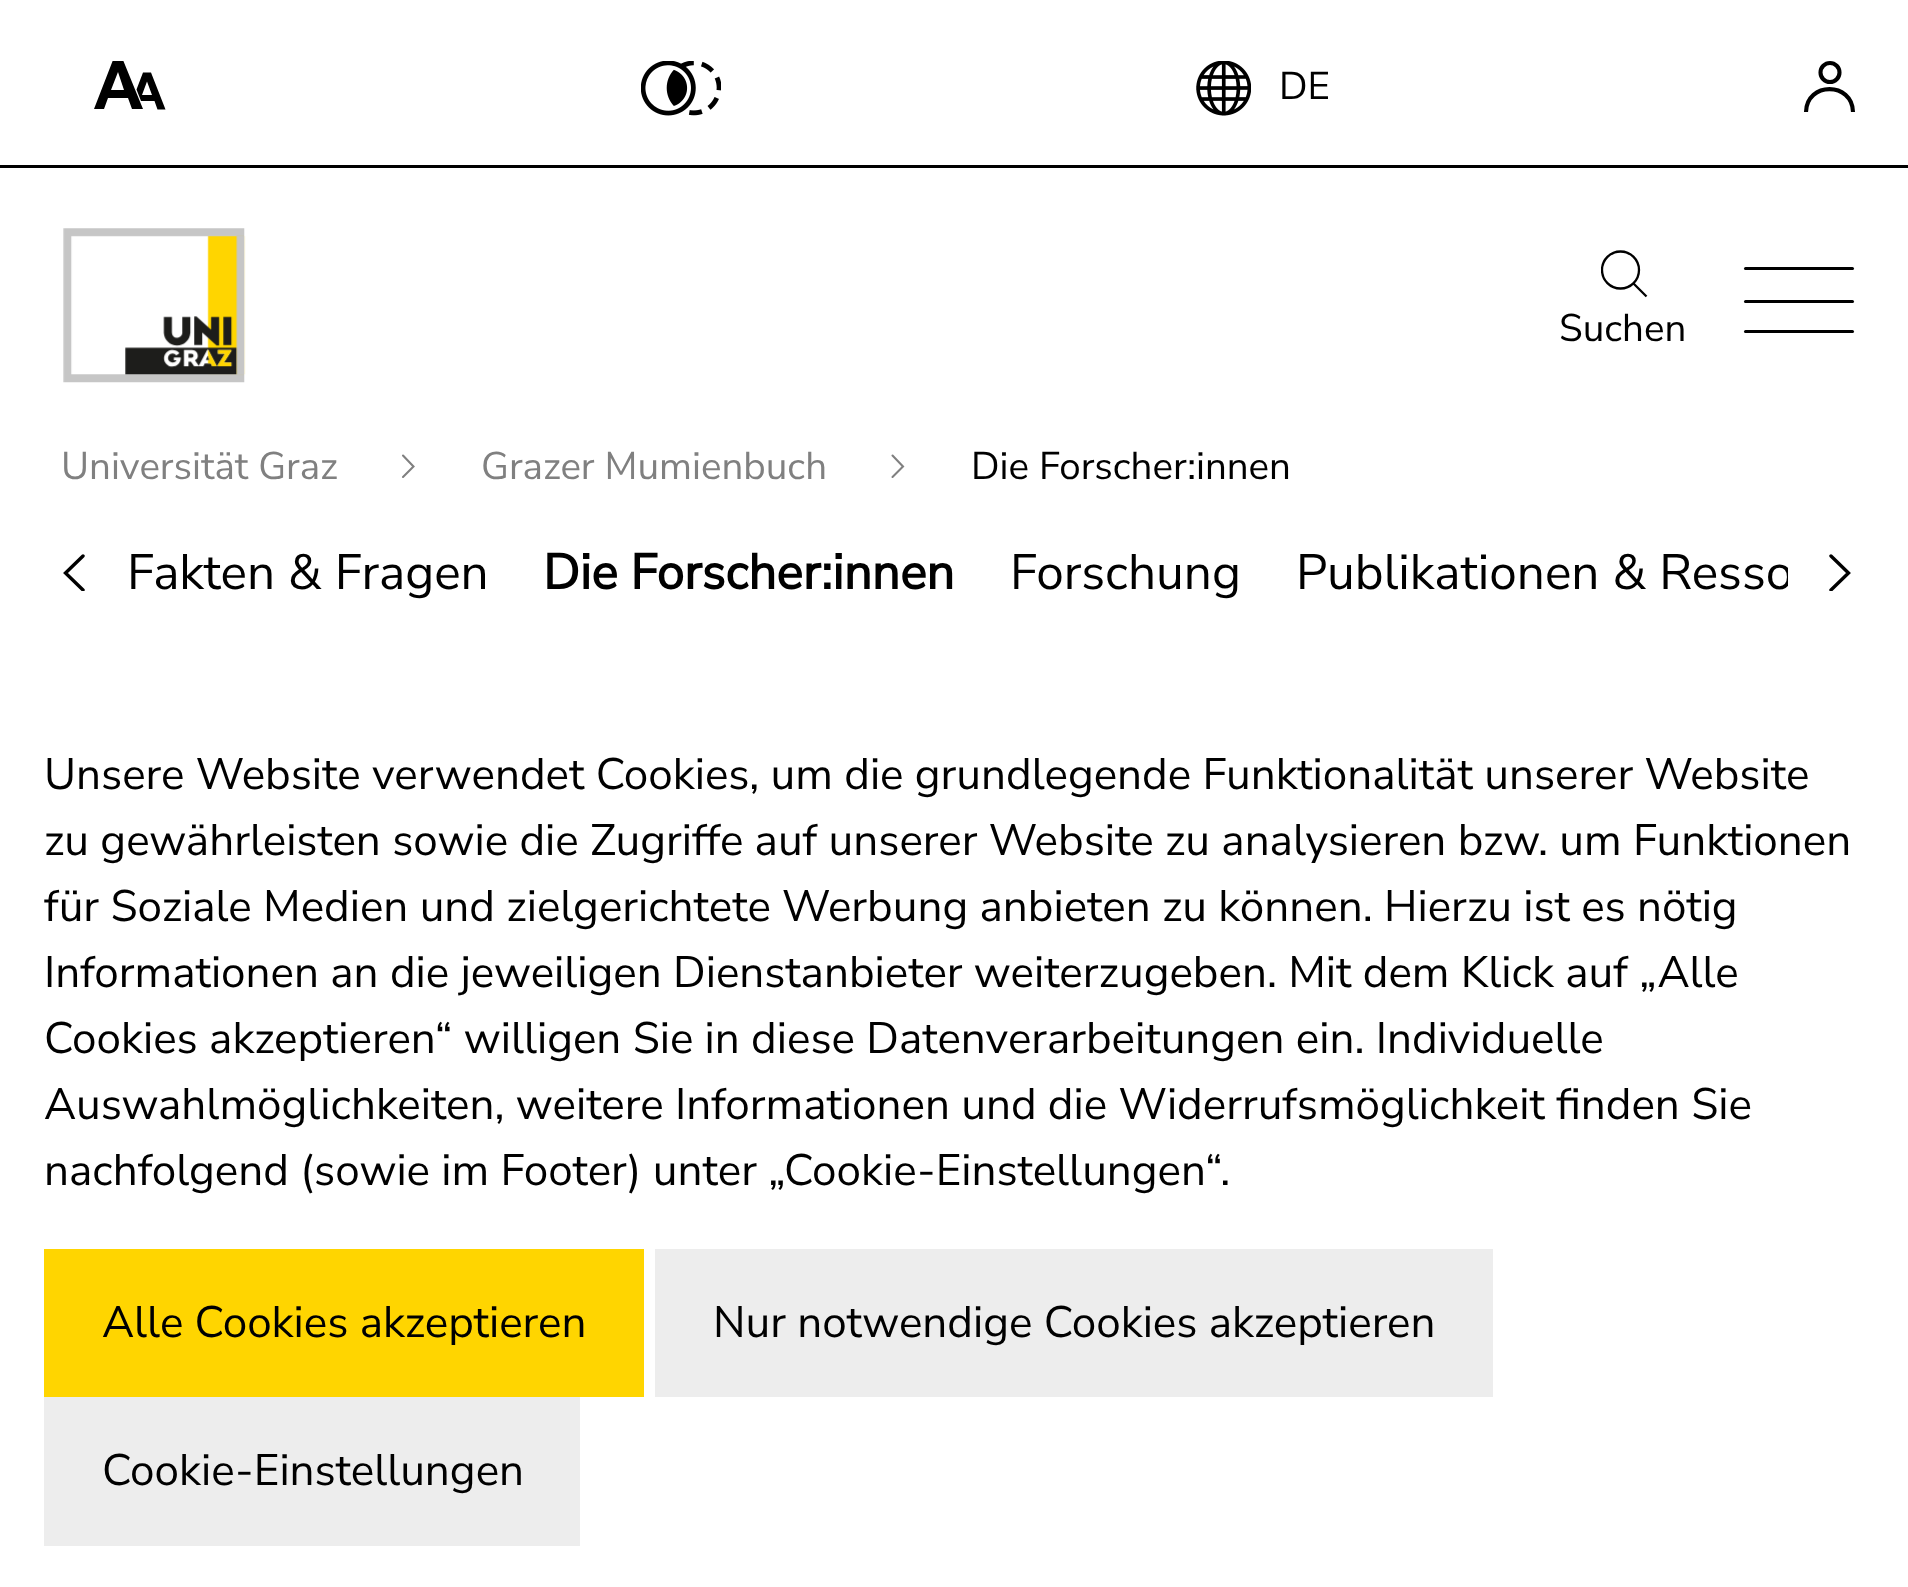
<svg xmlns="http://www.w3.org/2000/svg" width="1908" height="1587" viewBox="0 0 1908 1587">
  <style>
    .t1 { font: 38.5px Nunito Sans; fill: #000; }
    .t2 { font: 38.5px Nunito Sans; fill: #808080; }
    .t3 { font: 49.5px Nunito Sans; fill: #000; }
    .t4 { font: bold 49.5px Nunito Sans; fill: #000; }
    .t5 { font: 44px Nunito Sans; fill: #000; }
  </style>
  <defs>
    <clipPath id="clip1"><rect x="94" y="61" width="71" height="49"/></clipPath>
    <clipPath id="clip2"><rect x="1601" y="250" width="46" height="47"/></clipPath>
    <clipPath id="clip3"><rect x="63" y="553" width="22" height="38"/></clipPath>
    <clipPath id="clip4"><rect x="127" y="536" width="1661" height="72"/></clipPath>
    <clipPath id="clip5"><rect x="1829" y="553" width="22" height="38"/></clipPath>
  </defs>
  <rect width="100%" height="100%" fill="#fff"/>
  <rect x="0" y="165" width="1908" height="3" fill="#000"/>
  <g clip-path="url(#clip1)">
    <path d="M113 60L94 109H104L108 98H128L132 109H143L123 60ZM111 90L118 72L124 90Z" fill="#000"/>
  </g>
  <path d="M151 72.5H143L136.5 89.5L141 101H154.5L157.5 109.5H165.5ZM142 95L147 81.5L152 95Z" fill="#000"/>
  <image x="641" y="61" width="80" height="55" href="images/1.png"/>
  <image x="1196" y="61" width="55" height="55" href="images/2.png"/>
  <text x="1279" y="99" class="t1">DE</text>
  <path d="M1806 112C1806.5 81.5 1852.5 81.5 1853 112" fill="none" stroke="#000" stroke-width="4.1"/>
  <circle cx="1830" cy="72.5" r="9.5" fill="none" stroke="#000" stroke-width="4.1"/>
  <image x="63" y="228" width="183" height="155" href="images/3.png"/>
  <g clip-path="url(#clip2)">
    <circle cx="1620.5" cy="270" r="18.5" fill="none" stroke="#000" stroke-width="2.3"/>
  </g>
  <path d="M1633.5 283.5L1646.5 296.5" fill="none" stroke="#000" stroke-width="2.3"/>
  <text x="1559" y="341" class="t1">Suchen</text>
  <rect x="1744" y="267" width="110" height="3" rx="1.5" fill="#000"/>
  <rect x="1744" y="300" width="110" height="3" rx="1.5" fill="#000"/>
  <rect x="1744" y="330" width="110" height="3" rx="1.5" fill="#000"/>
  <text x="61" y="479" class="t2">Universität Graz</text>
  <path d="M403 477L413.5 466.5L403 455.5" fill="none" stroke="#808080" stroke-width="2.1" stroke-linecap="round"/>
  <text x="481" y="479" class="t2">Grazer Mumienbuch</text>
  <path d="M892.5 477L903 466.5L892.5 455.5" fill="none" stroke="#808080" stroke-width="2.1" stroke-linecap="round"/>
  <text x="971" y="479" class="t1">Die Forscher:innen</text>
  <g clip-path="url(#clip3)">
    <path d="M83 590L65.5 573L83 556" fill="none" stroke="#000" stroke-width="3.4" stroke-linecap="round"/>
  </g>
  <text x="127" y="589" class="t3">Fakten &amp; Fragen</text>
  <text x="543" y="589" class="t4">Die Forscher:innen</text>
  <text x="1010" y="589" class="t3">Forschung</text>
  <g clip-path="url(#clip4)">
    <text x="1296" y="589" class="t3">Publikationen &amp; Resso</text>
  </g>
  <g clip-path="url(#clip5)">
    <path d="M1831 590L1848.5 573L1831 556" fill="none" stroke="#000" stroke-width="3.4" stroke-linecap="round"/>
  </g>
  <text x="44" y="789" class="t5">Unsere Website verwendet Cookies, um die grundlegende Funktionalität unserer Website</text>
  <text x="44" y="855" class="t5">zu gewährleisten sowie die Zugriffe auf unserer Website zu analysieren bzw. um Funktionen</text>
  <text x="44" y="921" class="t5">für Soziale Medien und zielgerichtete Werbung anbieten zu können. Hierzu ist es nötig</text>
  <text x="44" y="987" class="t5">Informationen an die jeweiligen Dienstanbieter weiterzugeben. Mit dem Klick auf „Alle</text>
  <text x="44" y="1053" class="t5">Cookies akzeptieren“ willigen Sie in diese Datenverarbeitungen ein. Individuelle</text>
  <text x="44" y="1119" class="t5">Auswahlmöglichkeiten, weitere Informationen und die Widerrufsmöglichkeit finden Sie</text>
  <text x="44" y="1185" class="t5">nachfolgend (sowie im Footer) unter „Cookie-Einstellungen“.</text>
  <rect x="44" y="1249" width="600" height="148" fill="#ffd500"/>
  <text x="102" y="1337" class="t5">Alle Cookies akzeptieren</text>
  <rect x="655" y="1249" width="838" height="148" fill="#ededed"/>
  <text x="713" y="1337" class="t5">Nur notwendige Cookies akzeptieren</text>
  <rect x="44" y="1397" width="536" height="149" fill="#ededed"/>
  <text x="102" y="1485" class="t5">Cookie-Einstellungen</text>
</svg>
